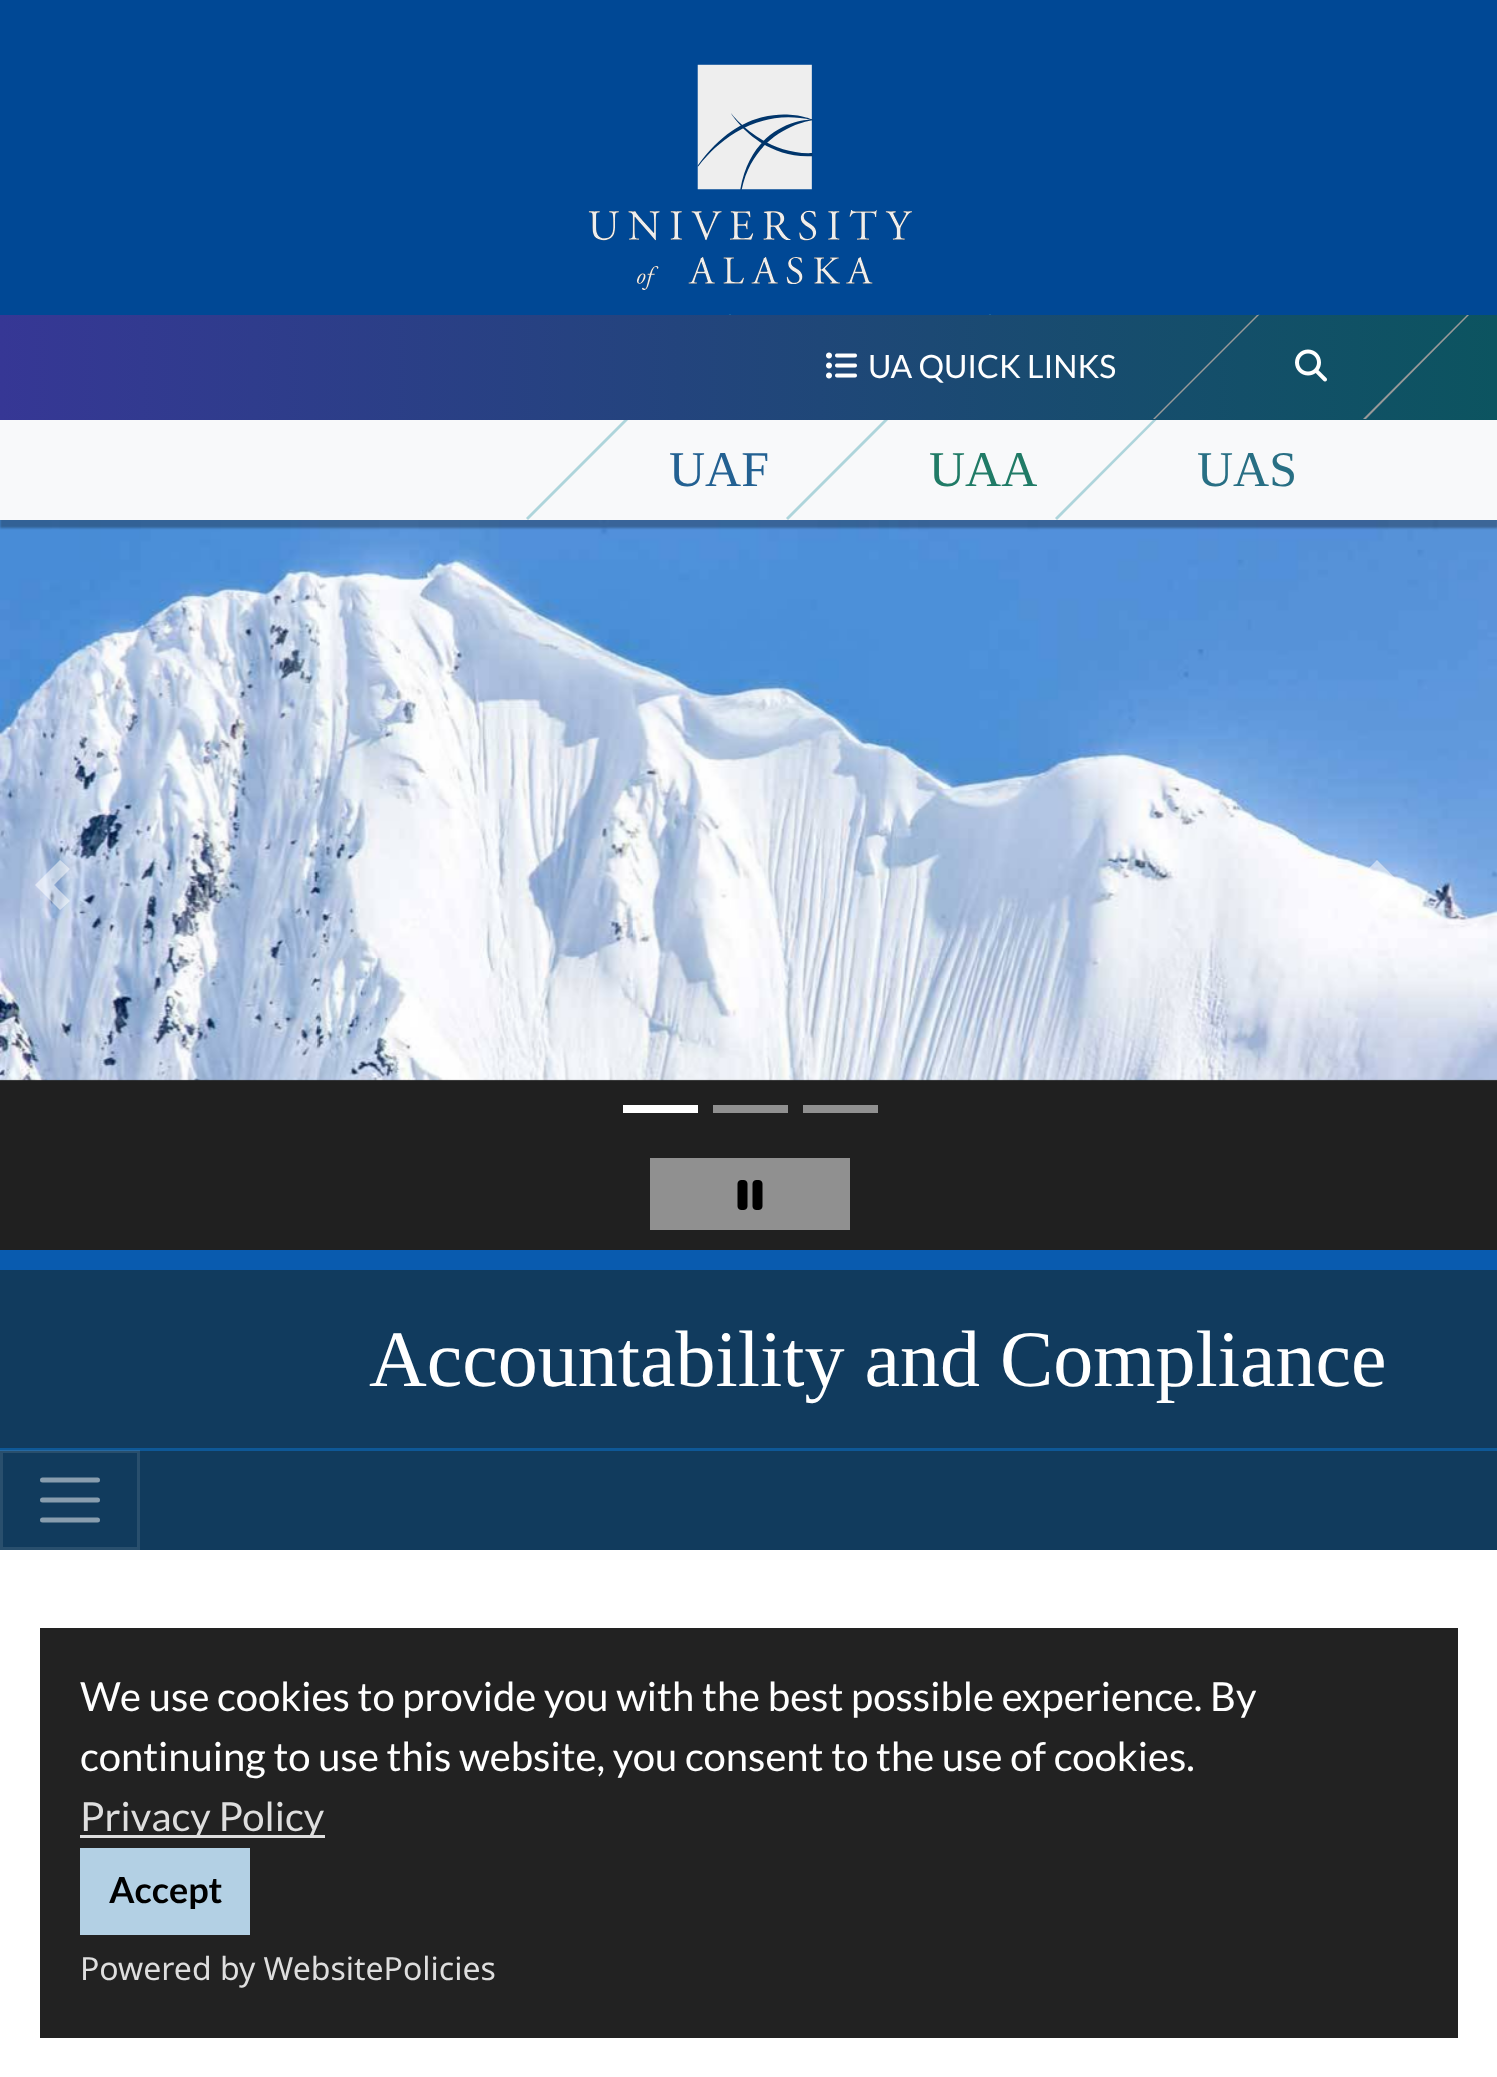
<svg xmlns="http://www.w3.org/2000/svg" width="1497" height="2077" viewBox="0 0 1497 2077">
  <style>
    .t1 { font: 50px Liberation Serif; fill: #236192; }
    .t2 { font: 50px Liberation Serif; fill: #207b66; }
    .t3 { font: 50px Liberation Serif; fill: #286f84; }
    .t4 { font: 32px Lato; fill: #fff; }
    .t5 { font: 80px Liberation Serif; fill: #fff; }
    .t6 { font: 40px Lato; fill: #fff; }
    .t7 { font: 40px Lato; fill: #dedede; }
    .t8 { font: bold 36px Lato; fill: #000; }
    .t9 { font: 32px Noto Sans; fill: #dedede; }
  </style>
  <defs>
    <linearGradient id="g1" gradientUnits="userSpaceOnUse" x1="0" y1="368" x2="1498" y2="367"><stop offset="0" stop-color="#363795"/><stop offset="1" stop-color="#0c5460"/></linearGradient>
  </defs>
  <rect width="100%" height="100%" fill="#fff"/>
  <rect x="0" y="0" width="1497" height="315" fill="#004895"/>
  <image x="588" y="64" width="324" height="226" href="images/1.png"/>
  <rect x="0" y="1079" width="1497" height="171" fill="#202020"/>
  <image x="0" y="520" width="1497" height="561" href="images/4.png"/>
  <rect x="0" y="323" width="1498" height="205" fill="#0000004d" filter="blur(1px)"/>
  <rect x="0" y="420" width="1497" height="100" fill="#f8f9fa"/>
  <text x="669" y="486" class="t1">UAF</text>
  <path d="M730 314L732 316L528 520L526 518Z" fill="#5cacb978"/>
  <text x="929" y="486" class="t2">UAA</text>
  <path d="M990 314L992 316L788 520L786 518Z" fill="#5cacb978"/>
  <text x="1197" y="486" class="t3">UAS</text>
  <path d="M1259 314L1260 316L1057 520L1055 518Z" fill="#5cacb978"/>
  <rect x="0" y="315" width="1497" height="105" fill="url(#g1)"/>
  <path d="M1257 315H1259L1155 419H1153Z" fill="#999"/>
  <image x="826" y="352" width="31" height="27" href="images/2.png"/>
  <text x="868" y="378" class="t4">UA QUICK LINKS</text>
  <path d="M1467 315H1469L1366 419H1363Z" fill="#999"/>
  <image x="1295" y="349" width="32" height="33" href="images/3.png"/>
  <path d="M60 860L35 885L60 910L70 901L54 885L70 869Z" fill="#ffffff80"/>
  <path d="M1377 860L1368 869L1383 885L1368 901L1377 910L1402 885Z" fill="#ffffff80"/>
  <rect x="623" y="1105" width="75" height="8" fill="#fff"/>
  <rect x="713" y="1105" width="75" height="8" fill="#909090"/>
  <rect x="803" y="1105" width="75" height="8" fill="#909090"/>
  <rect x="650" y="1158" width="200" height="72" fill="#909090"/>
  <image x="737" y="1180" width="26" height="30" href="images/5.png"/>
  <rect x="0" y="1270" width="1497" height="178" fill="#113b5e"/>
  <rect x="0" y="1250" width="1497" height="20" fill="#095baf"/>
  <text x="369" y="1386" class="t5">Accountability and Compliance</text>
  <rect x="0" y="1451" width="1497" height="99" fill="#113b5d"/>
  <rect x="0" y="1448" width="1497" height="3" fill="#0e5897"/>
  <rect x="1.5" y="1451.5" width="137" height="97" fill="none" stroke="#ffffff1a" stroke-width="3"/>
  <path d="M42.5 1480H97.5M42.5 1500H97.5M42.5 1520H97.5" fill="none" stroke="#889dae" stroke-width="5" stroke-linecap="round"/>
  <rect x="40" y="1628" width="1418" height="410" fill="#222"/>
  <text x="80" y="1711" class="t6">We use cookies to provide you with the best possible experience. By</text>
  <text x="80" y="1771" class="t6">continuing to use this website, you consent to the use of cookies.</text>
  <rect x="80" y="1835" width="245" height="3" fill="#dedede"/>
  <text x="80" y="1831" class="t7">Privacy Policy</text>
  <rect x="80" y="1848" width="170" height="87" fill="#b3d0e4"/>
  <text x="109" y="1903" class="t8">Accept</text>
  <text x="80" y="1980" class="t9">Powered by WebsitePolicies</text>
</svg>
